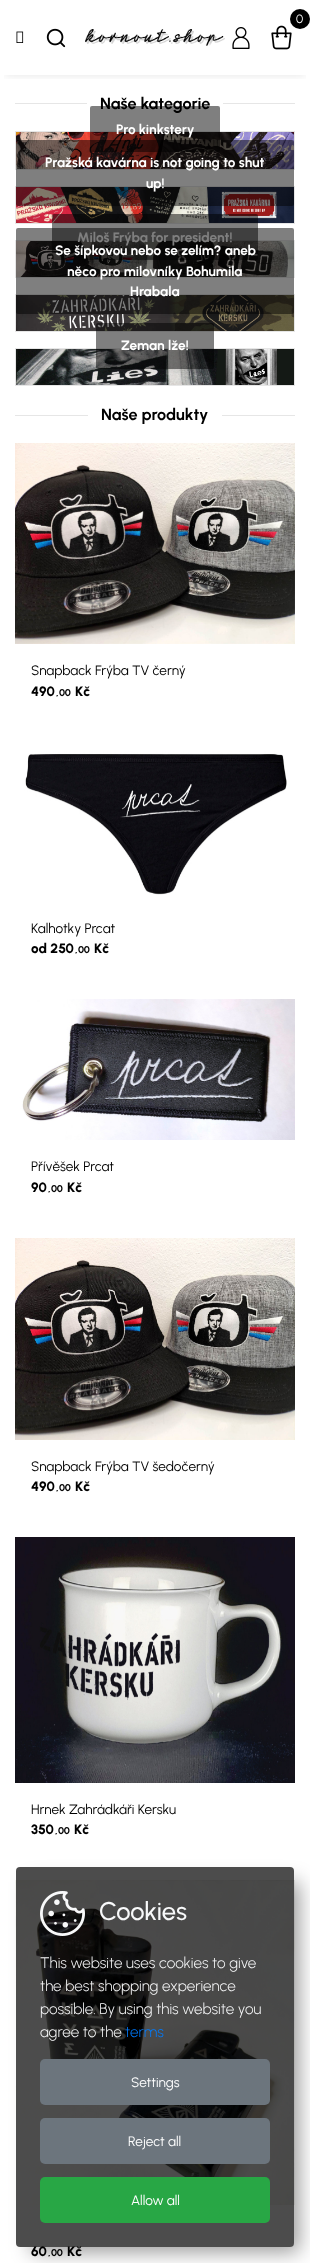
<svg xmlns="http://www.w3.org/2000/svg" width="310" height="2263" viewBox="0 0 310 2263">
  <style>
    .t1 { font: 12px Urbanist; fill: #fff; }
    .t2 { font: bold 16.25px Urbanist; fill: #000; }
    .t3 { font: bold 13.6px Urbanist; fill: #fff; }
    .t4 { font: 13.6px Urbanist; fill: #000; }
    .t5 { font: 800 13.6px Urbanist; fill: #000; }
    .t6 { font: 800 10px Urbanist; fill: #000; }
    .t7 { font: 500 25.5px Urbanist; fill: #f8f9fa; }
    .t8 { font: 300 15.25px Urbanist; fill: #f8f9fa; }
    .t9 { font: 300 15.25px Urbanist; fill: #007bff; }
    .t10 { font: 13.6px Urbanist; fill: #fff; }
  </style>
  <defs>
    <clipPath id="clip1"><rect x="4" y="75" width="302" height="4"/></clipPath>
    <clipPath id="clip2"><rect x="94" y="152" width="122" height="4"/></clipPath>
    <clipPath id="clip3"><rect x="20" y="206" width="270" height="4"/></clipPath>
    <clipPath id="clip4"><rect x="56" y="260" width="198" height="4"/></clipPath>
    <clipPath id="clip5"><rect x="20" y="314" width="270" height="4"/></clipPath>
    <clipPath id="clip6"><rect x="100" y="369" width="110" height="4"/></clipPath>
    <clipPath id="clip7"><path d="M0 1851H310V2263H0ZM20 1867H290C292 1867 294 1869 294 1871V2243C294 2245 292 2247 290 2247H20C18 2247 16 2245 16 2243V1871C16 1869 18 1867 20 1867Z" clip-rule="evenodd"/></clipPath>
  </defs>
  <rect width="100%" height="100%" fill="#fff"/>
  <g clip-path="url(#clip1)">
    <rect x="5" y="10" width="300" height="65" fill="#0000001a" filter="blur(5px)"/>
  </g>
  <image x="271" y="25" width="21" height="25" href="images/1.png"/>
  <circle cx="300" cy="19" r="10" fill="#000"/>
  <text x="296" y="23" class="t1">0</text>
  <image x="232" y="27" width="18" height="22" href="images/2.png"/>
  <image x="16" y="31" width="8" height="12" href="images/3.png"/>
  <image x="46" y="28" width="20" height="20" href="images/4.png"/>
  <image x="85" y="29" width="140" height="17" href="images/5.png"/>
  <rect x="15" y="103" width="280" height="1" fill="#e6e6e6"/>
  <rect x="87" y="103" width="136" height="1" fill="#fff"/>
  <text x="100" y="109" class="t2">Naše kategorie</text>
  <rect x="15.5" y="131.5" width="279" height="38" fill="none" stroke="#e6e6e6"/>
  <image x="16" y="132" width="278" height="37" href="images/6.png"/>
  <g clip-path="url(#clip2)">
    <rect x="95" y="116" width="120" height="36" fill="#0000001a" filter="blur(5px)"/>
  </g>
  <rect x="90" y="106" width="130" height="46" rx="2" fill="#00000080"/>
  <text x="116" y="134" class="t3">Pro kinkstery</text>
  <rect x="15.5" y="186.5" width="279" height="37" fill="none" stroke="#e6e6e6"/>
  <image x="16" y="187" width="278" height="36" href="images/7.png"/>
  <g clip-path="url(#clip3)">
    <rect x="21" y="150" width="268" height="56" fill="#0000001a" filter="blur(5px)"/>
  </g>
  <rect x="16" y="140" width="278" height="66" rx="2" fill="#00000080"/>
  <text x="45" y="167" class="t3">Pražská kavárna is not going to shut</text>
  <text x="146" y="188" class="t3">up!</text>
  <rect x="15.5" y="240.5" width="279" height="37" fill="none" stroke="#e6e6e6"/>
  <image x="16" y="241" width="278" height="36" href="images/8.png"/>
  <g clip-path="url(#clip4)">
    <rect x="57" y="224" width="196" height="36" fill="#0000001a" filter="blur(5px)"/>
  </g>
  <rect x="52" y="214" width="206" height="46" rx="2" fill="#00000080"/>
  <text x="77" y="242" class="t3">Miloš Frýba for president!</text>
  <rect x="15.5" y="294.5" width="279" height="37" fill="none" stroke="#e6e6e6"/>
  <image x="16" y="295" width="278" height="36" href="images/9.png"/>
  <g clip-path="url(#clip5)">
    <rect x="21" y="238" width="268" height="76" fill="#0000001a" filter="blur(5px)"/>
  </g>
  <rect x="16" y="228" width="278" height="86" rx="2" fill="#00000080"/>
  <text x="55" y="255" class="t3">Se šípkovou nebo se zelím? aneb</text>
  <text x="67" y="276" class="t3">něco pro milovníky Bohumila</text>
  <text x="130" y="296" class="t3">Hrabala</text>
  <rect x="15.5" y="348.5" width="279" height="37" fill="none" stroke="#e6e6e6"/>
  <image x="16" y="349" width="278" height="36" href="images/10.png"/>
  <g clip-path="url(#clip6)">
    <rect x="101" y="333" width="108" height="36" fill="#0000001a" filter="blur(5px)"/>
  </g>
  <rect x="96" y="323" width="118" height="46" rx="2" fill="#00000080"/>
  <text x="121" y="350" class="t3">Zeman lže!</text>
  <rect x="15" y="415" width="280" height="1" fill="#e6e6e6"/>
  <rect x="88" y="415" width="134" height="1" fill="#fff"/>
  <text x="101" y="420" class="t2">Naše produkty</text>
  <image x="15" y="443" width="280" height="201" href="images/11.png"/>
  <text x="31" y="675" class="t4">Snapback Frýba TV černý</text>
  <text x="31" y="696" class="t5">490</text>
  <text x="56" y="696" class="t6">,</text>
  <text x="59" y="696" class="t6">00</text>
  <text x="75" y="696" class="t5">Kč</text>
  <image x="15" y="742" width="280" height="160" href="images/12.png"/>
  <text x="31" y="933" class="t4">Kalhotky Prcat</text>
  <text x="31" y="953" class="t5">od 250</text>
  <text x="75" y="953" class="t6">,</text>
  <text x="78" y="953" class="t6">00</text>
  <text x="94" y="953" class="t5">Kč</text>
  <image x="15" y="999" width="280" height="141" href="images/13.png"/>
  <text x="31" y="1171" class="t4">Přívěšek Prcat</text>
  <text x="31" y="1192" class="t5">90</text>
  <text x="48" y="1192" class="t6">,</text>
  <text x="51" y="1192" class="t6">00</text>
  <text x="67" y="1192" class="t5">Kč</text>
  <image x="15" y="1238" width="280" height="202" href="images/14.png"/>
  <text x="31" y="1471" class="t4">Snapback Frýba TV šedočerný</text>
  <text x="31" y="1491" class="t5">490</text>
  <text x="56" y="1491" class="t6">,</text>
  <text x="59" y="1491" class="t6">00</text>
  <text x="75" y="1491" class="t5">Kč</text>
  <image x="15" y="1537" width="280" height="246" href="images/15.png"/>
  <text x="31" y="1814" class="t4">Hrnek Zahrádkáři Kersku</text>
  <text x="31" y="1834" class="t5">350</text>
  <text x="55" y="1834" class="t6">,</text>
  <text x="58" y="1834" class="t6">00</text>
  <text x="74" y="1834" class="t5">Kč</text>
  <image x="15" y="1880" width="280" height="325" href="images/16.png"/>
  <text x="31" y="2256" class="t5">60</text>
  <text x="48" y="2256" class="t6">,</text>
  <text x="51" y="2256" class="t6">00</text>
  <text x="67" y="2256" class="t5">Kč</text>
  <g clip-path="url(#clip7)">
    <rect x="31" y="1882" width="268" height="370" fill="#00000066" filter="blur(10px)"/>
  </g>
  <rect x="16" y="1867" width="278" height="380" rx="4" fill="#000000b3"/>
  <image x="40" y="1891" width="45" height="45" href="images/17.png"/>
  <text x="99" y="1920" class="t7">Cookies</text>
  <text x="40" y="1968" class="t8">This website uses cookies to give</text>
  <text x="40" y="1991" class="t8">the best shopping experience</text>
  <text x="40" y="2014" class="t8">possible. By using this website you</text>
  <text x="40" y="2037" class="t8">agree to the</text>
  <text x="125" y="2037" class="t9">terms</text>
  <rect x="40" y="2059" width="230" height="46" rx="5" fill="#6c757d"/>
  <text x="131" y="2087" class="t10">Settings</text>
  <rect x="40" y="2118" width="230" height="46" rx="5" fill="#6c757d"/>
  <text x="128" y="2146" class="t10">Reject all</text>
  <rect x="40" y="2177" width="230" height="46" rx="5" fill="#28a745"/>
  <text x="131" y="2205" class="t10">Allow all</text>
</svg>
